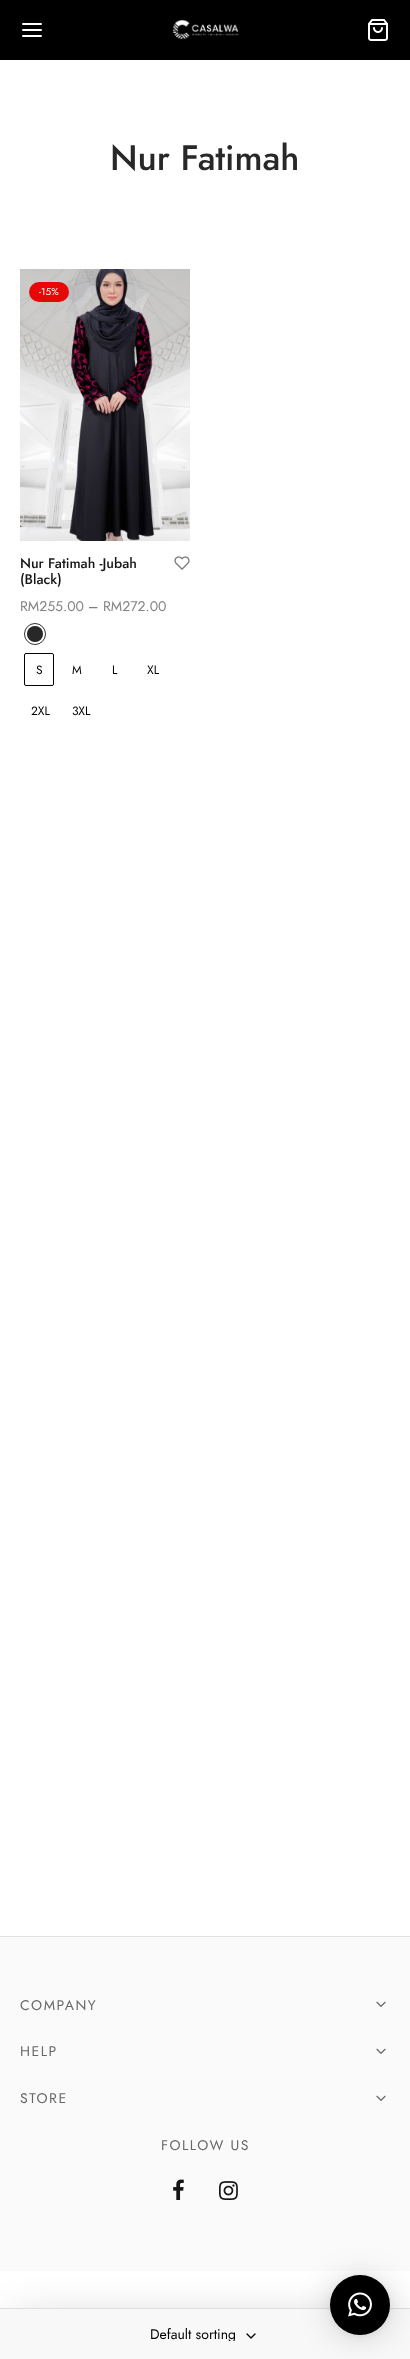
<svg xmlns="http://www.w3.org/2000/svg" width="410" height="2359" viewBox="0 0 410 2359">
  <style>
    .t1 { font: 500 35.25px Jost; fill: #282828; }
    .t2 { font: 10px Jost; fill: #fff; }
    .t3 { font: 500 14px Jost; fill: #151515; }
    .t4 { font: 14px Jost; fill: #848485; }
    .t5 { font: 14px Jost; fill: #686868; }
    .t6 { font: 12px Jost; fill: #000; }
    .t7 { font: 14px Jost; fill: #000; }
    .t8 { font: 14px Jost; letter-spacing: 1.5px; fill: #686868; }
  </style>
  <defs>
    <clipPath id="clip1"><rect x="150" y="2327" width="110" height="14"/></clipPath>
  </defs>
  <rect width="100%" height="100%" fill="#fff"/>
  <rect x="0" y="0" width="410" height="60" fill="#000"/>
  <path d="M23 30H41M23 24H41M23 36H41" fill="none" stroke="#fff" stroke-width="2" stroke-linecap="round" stroke-linejoin="round"/>
  <image x="172" y="19" width="67" height="21" href="images/1.png"/>
  <image x="368" y="19" width="20" height="22" href="images/2.png"/>
  <text x="110" y="170" class="t1">Nur Fatimah</text>
  <image x="20" y="269" width="170" height="272" href="images/3.png"/>
  <rect x="29" y="282" width="40" height="20" rx="10" fill="#e80707"/>
  <text x="39" y="295" class="t2">-15%</text>
  <text x="20" y="568" class="t3">Nur Fatimah -Jubah</text>
  <text x="20" y="584" class="t3">(Black)</text>
  <image x="174" y="556" width="16" height="14" href="images/4.png"/>
  <text x="20" y="611" class="t4">RM255.00</text>
  <text x="88" y="611" class="t5">–</text>
  <text x="103" y="611" class="t4">RM272.00</text>
  <circle cx="35" cy="634" r="10.5" fill="none" stroke="#333"/>
  <circle cx="35" cy="634" r="8" fill="#282828"/>
  <circle cx="35" cy="634" r="7.5" fill="none" stroke="#0000001a"/>
  <rect x="24.5" y="653.5" width="29" height="32" rx="1.5" fill="none" stroke="#000"/>
  <text x="36" y="674" class="t6">S</text>
  <text x="72" y="674" class="t6">M</text>
  <text x="112" y="674" class="t6">L</text>
  <text x="147" y="674" class="t6">XL</text>
  <text x="31" y="715" class="t6">2XL</text>
  <text x="72" y="715" class="t6">3XL</text>
  <rect x="0" y="1937" width="410" height="334" fill="#fafafa"/>
  <rect x="13" y="2325" width="380" height="21" fill="#0000004d" filter="blur(22.5px)"/>
  <rect x="0" y="2309" width="410" height="50" fill="#f8f8f8"/>
  <rect x="0" y="2308" width="410" height="1" fill="#dfdfdf"/>
  <g clip-path="url(#clip1)">
    <text x="150" y="2339" class="t7">Default sorting</text>
  </g>
  <path d="M247 2334L251 2338L255 2334" fill="none" stroke="#000" stroke-width="1.3" stroke-linecap="round" stroke-linejoin="round"/>
  <rect x="0" y="1936" width="410" height="1" fill="#e1e1e1"/>
  <text x="20" y="2010" class="t8">COMPANY</text>
  <image x="376" y="2001" width="10" height="6" href="images/5.png"/>
  <text x="20" y="2056" class="t8">HELP</text>
  <image x="376" y="2048" width="10" height="6" href="images/5.png"/>
  <text x="20" y="2103" class="t8">STORE</text>
  <image x="376" y="2095" width="10" height="6" href="images/5.png"/>
  <text x="161" y="2150" class="t8">FOLLOW US</text>
  <image x="173" y="2179" width="11" height="21" href="images/6.png"/>
  <image x="219" y="2181" width="19" height="19" href="images/7.png"/>
  <rect x="330" y="2277" width="60" height="60" rx="30" fill="#00000029" filter="blur(16px)"/>
  <rect x="330" y="2276" width="60" height="60" rx="30" fill="#0000000f" filter="blur(3px)"/>
  <circle cx="360" cy="2305" r="30" fill="#000"/>
  <image x="348" y="2292" width="24" height="25" href="images/8.png"/>
</svg>
